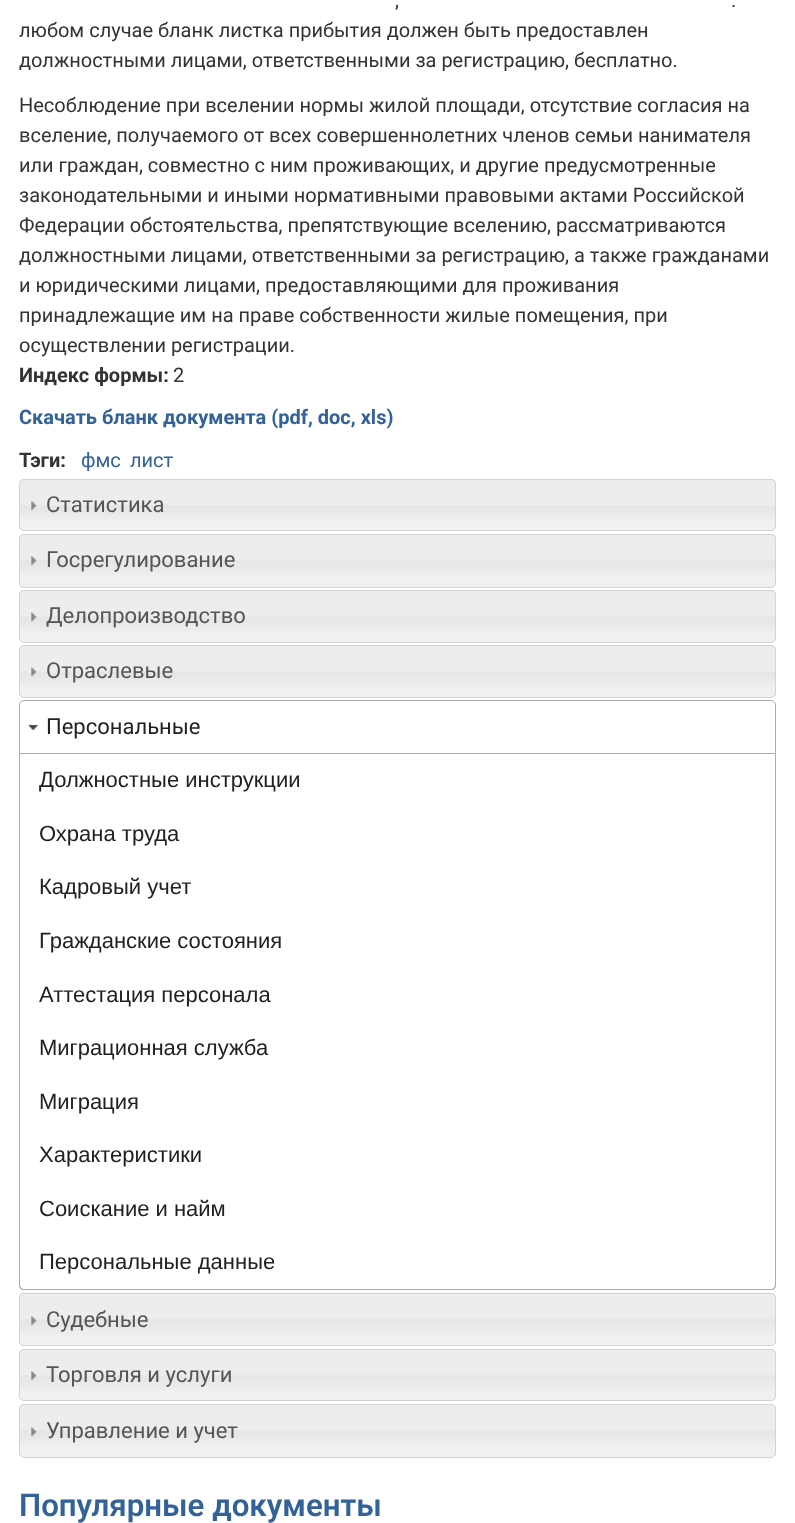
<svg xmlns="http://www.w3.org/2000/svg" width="795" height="1523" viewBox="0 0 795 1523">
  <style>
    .t1 { font: 20px Roboto; fill: #333; }
    .t2 { font: bold 20px Roboto; fill: #333; }
    .t3 { font: bold 20px Roboto; fill: #336299; }
    .t4 { font: 20px Roboto; fill: #336299; }
    .t5 { font: 22px Roboto; fill: #555; }
    .t6 { font: 22px Roboto; fill: #212121; }
    .t7 { font: 22px Liberation Sans; fill: #212121; }
    .t8 { font: 600 31.25px Roboto; fill: #336299; }
  </style>
  <rect width="100%" height="100%" fill="#fff"/>
  <text x="395" y="7" class="t1">,</text>
  <text x="731" y="7" class="t1">.</text>
  <text x="19" y="37" class="t1">любом случае бланк листка прибытия должен быть предоставлен</text>
  <text x="19" y="67" class="t1">должностными лицами, ответственными за регистрацию, бесплатно.</text>
  <text x="19" y="112" class="t1">Несоблюдение при вселении нормы жилой площади, отсутствие согласия на</text>
  <text x="19" y="142" class="t1">вселение, получаемого от всех совершеннолетних членов семьи нанимателя</text>
  <text x="19" y="172" class="t1">или граждан, совместно с ним проживающих, и другие предусмотренные</text>
  <text x="19" y="202" class="t1">законодательными и иными нормативными правовыми актами Российской</text>
  <text x="19" y="232" class="t1">Федерации обстоятельства, препятствующие вселению, рассматриваются</text>
  <text x="19" y="262" class="t1">должностными лицами, ответственными за регистрацию, а также гражданами</text>
  <text x="19" y="292" class="t1">и юридическими лицами, предоставляющими для проживания</text>
  <text x="19" y="322" class="t1">принадлежащие им на праве собственности жилые помещения, при</text>
  <text x="19" y="352" class="t1">осуществлении регистрации.</text>
  <text x="19" y="382" class="t2">Индекс формы:</text>
  <text x="173" y="382" class="t1">2</text>
  <text x="19" y="424" class="t3">Скачать бланк документа (pdf, doc, xls)</text>
  <text x="19" y="467" class="t2">Тэги:</text>
  <text x="81" y="467" class="t4">фмс</text>
  <text x="130" y="467" class="t4">лист</text>
  <image x="19" y="479" width="757" height="52" href="images/1.png"/>
  <rect x="19.5" y="479.5" width="756" height="51" rx="4.5" fill="none" stroke="#d3d3d3"/>
  <image x="31" y="501" width="6" height="10" href="images/2.png"/>
  <text x="46" y="512" class="t5">Статистика</text>
  <image x="19" y="534" width="757" height="53" href="images/3.png"/>
  <rect x="19.5" y="534.5" width="756" height="53" rx="4.5" fill="none" stroke="#d3d3d3"/>
  <image x="31" y="556" width="6" height="10" href="images/2.png"/>
  <text x="46" y="567" class="t5">Госрегулирование</text>
  <image x="19" y="590" width="757" height="52" href="images/4.png"/>
  <rect x="19.5" y="590.5" width="756" height="52" rx="4.5" fill="none" stroke="#d3d3d3"/>
  <image x="31" y="612" width="6" height="10" href="images/5.png"/>
  <text x="46" y="623" class="t5">Делопроизводство</text>
  <image x="19" y="645" width="757" height="52" href="images/4.png"/>
  <rect x="19.5" y="645.5" width="756" height="52" rx="4.5" fill="none" stroke="#d3d3d3"/>
  <image x="31" y="667" width="6" height="10" href="images/5.png"/>
  <text x="46" y="678" class="t5">Отраслевые</text>
  <path d="M24 700.5H771C773.5 700.5 775.5 702.5 775.5 705V753.5H19.5V705C19.5 702.5 21.5 700.5 24 700.5Z" fill="none" stroke="#aaa"/>
  <image x="28" y="724" width="10" height="7" href="images/6.png"/>
  <text x="46" y="734" class="t6">Персональные</text>
  <path d="M19 754H776V1285C776 1288 774 1290 771 1290H24C21 1290 19 1288 19 1285ZM20 754H775V1285C775 1287 773 1289 771 1289H24C22 1289 20 1287 20 1285Z" fill="#aaa" fill-rule="evenodd"/>
  <text x="39" y="787" class="t7">Должностные инструкции</text>
  <text x="39" y="841" class="t7">Охрана труда</text>
  <text x="39" y="894" class="t7">Кадровый учет</text>
  <text x="39" y="948" class="t7">Гражданские состояния</text>
  <text x="39" y="1002" class="t7">Аттестация персонала</text>
  <text x="39" y="1055" class="t7">Миграционная служба</text>
  <text x="39" y="1109" class="t7">Миграция</text>
  <text x="39" y="1162" class="t7">Характеристики</text>
  <text x="39" y="1216" class="t7">Соискание и найм</text>
  <text x="39" y="1269" class="t7">Персональные данные</text>
  <image x="19" y="1292" width="757" height="54" href="images/7.png"/>
  <rect x="19.5" y="1293.5" width="756" height="52" rx="4.5" fill="none" stroke="#d3d3d3"/>
  <image x="31" y="1316" width="6" height="10" href="images/8.png"/>
  <text x="46" y="1327" class="t5">Судебные</text>
  <image x="19" y="1349" width="757" height="52" href="images/1.png"/>
  <rect x="19.5" y="1349.5" width="756" height="51" rx="4.5" fill="none" stroke="#d3d3d3"/>
  <image x="31" y="1371" width="6" height="10" href="images/2.png"/>
  <text x="46" y="1382" class="t5">Торговля и услуги</text>
  <image x="19" y="1404" width="757" height="53" href="images/3.png"/>
  <rect x="19.5" y="1404.5" width="756" height="53" rx="4.5" fill="none" stroke="#d3d3d3"/>
  <image x="31" y="1427" width="6" height="10" href="images/9.png"/>
  <text x="46" y="1438" class="t5">Управление и учет</text>
  <text x="19" y="1516" class="t8">Популярные документы</text>
</svg>
